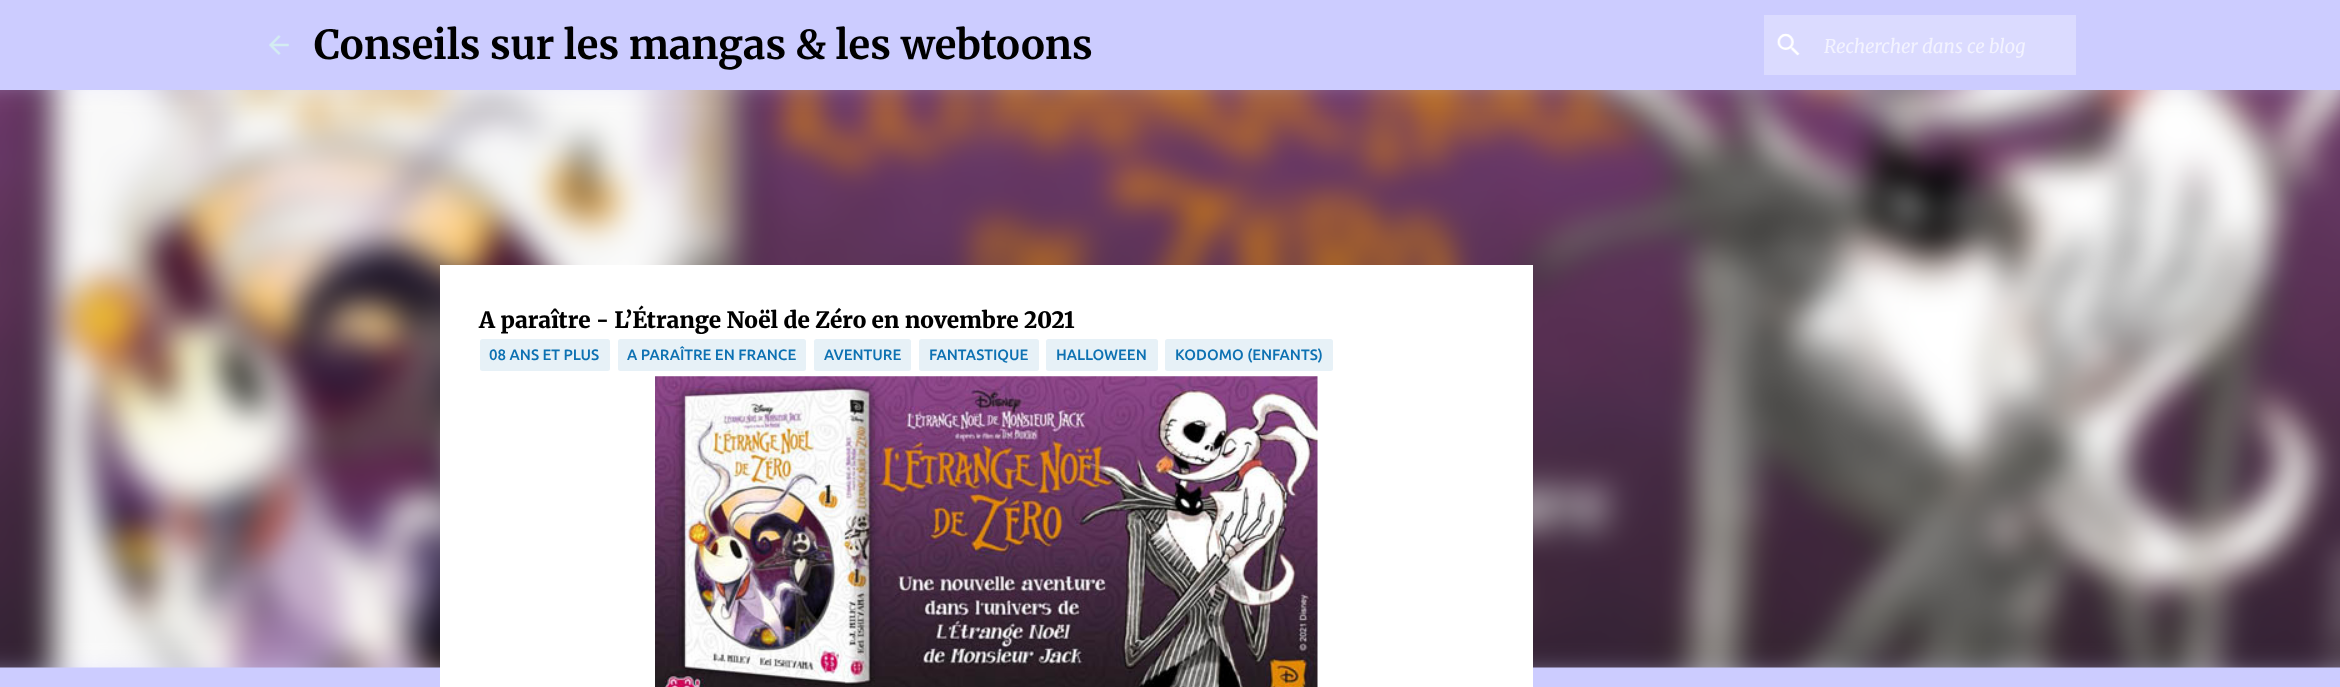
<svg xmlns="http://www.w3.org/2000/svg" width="2340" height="687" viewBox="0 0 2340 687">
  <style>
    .t1 { font: bold 40px Merriweather; fill: #000; }
    .t2 { font: italic 18.75px Merriweather; fill: #f3f3ff; }
    .t3 { font: 900 22.5px Merriweather; fill: #000; }
    .t4 { font: 500 15px Ubuntu; fill: #0d71b2; }
  </style>
  <rect width="100%" height="100%" fill="#ccf"/>
  <image x="269" y="35" width="20" height="20" href="images/1.png"/>
  <text x="314" y="59" class="t1">Conseils sur les mangas &amp; les webtoons</text>
  <rect x="1764" y="15" width="312" height="60" fill="#dbdbff"/>
  <image x="1777" y="33" width="23" height="23" href="images/2.png"/>
  <text x="1824" y="53" class="t2">Rechercher dans ce blog</text>
  <image x="0" y="90" width="2340" height="578" href="images/4.png"/>
  <rect x="440" y="265" width="1093" height="422" fill="#fff"/>
  <text x="479" y="328" class="t3">A paraître - L’Étrange Noël de Zéro en novembre 2021</text>
  <rect x="480" y="339" width="130" height="32" rx="2.5" fill="#e7f1f7"/>
  <text x="489" y="360" class="t4">08 ANS ET PLUS</text>
  <rect x="618" y="339" width="188" height="32" rx="2.5" fill="#e7f1f7"/>
  <text x="627" y="360" class="t4">A PARAÎTRE EN FRANCE</text>
  <rect x="814" y="339" width="97" height="32" rx="2.5" fill="#e7f1f7"/>
  <text x="824" y="360" class="t4">AVENTURE</text>
  <rect x="919" y="339" width="120" height="32" rx="2.5" fill="#e7f1f7"/>
  <text x="929" y="360" class="t4">FANTASTIQUE</text>
  <rect x="1046" y="339" width="112" height="32" rx="2.5" fill="#e7f1f7"/>
  <text x="1056" y="360" class="t4">HALLOWEEN</text>
  <rect x="1165" y="339" width="168" height="32" rx="2.5" fill="#e7f1f7"/>
  <text x="1175" y="360" class="t4">KODOMO (ENFANTS)</text>
  <image x="655" y="376" width="663" height="311" href="images/3.png"/>
</svg>
